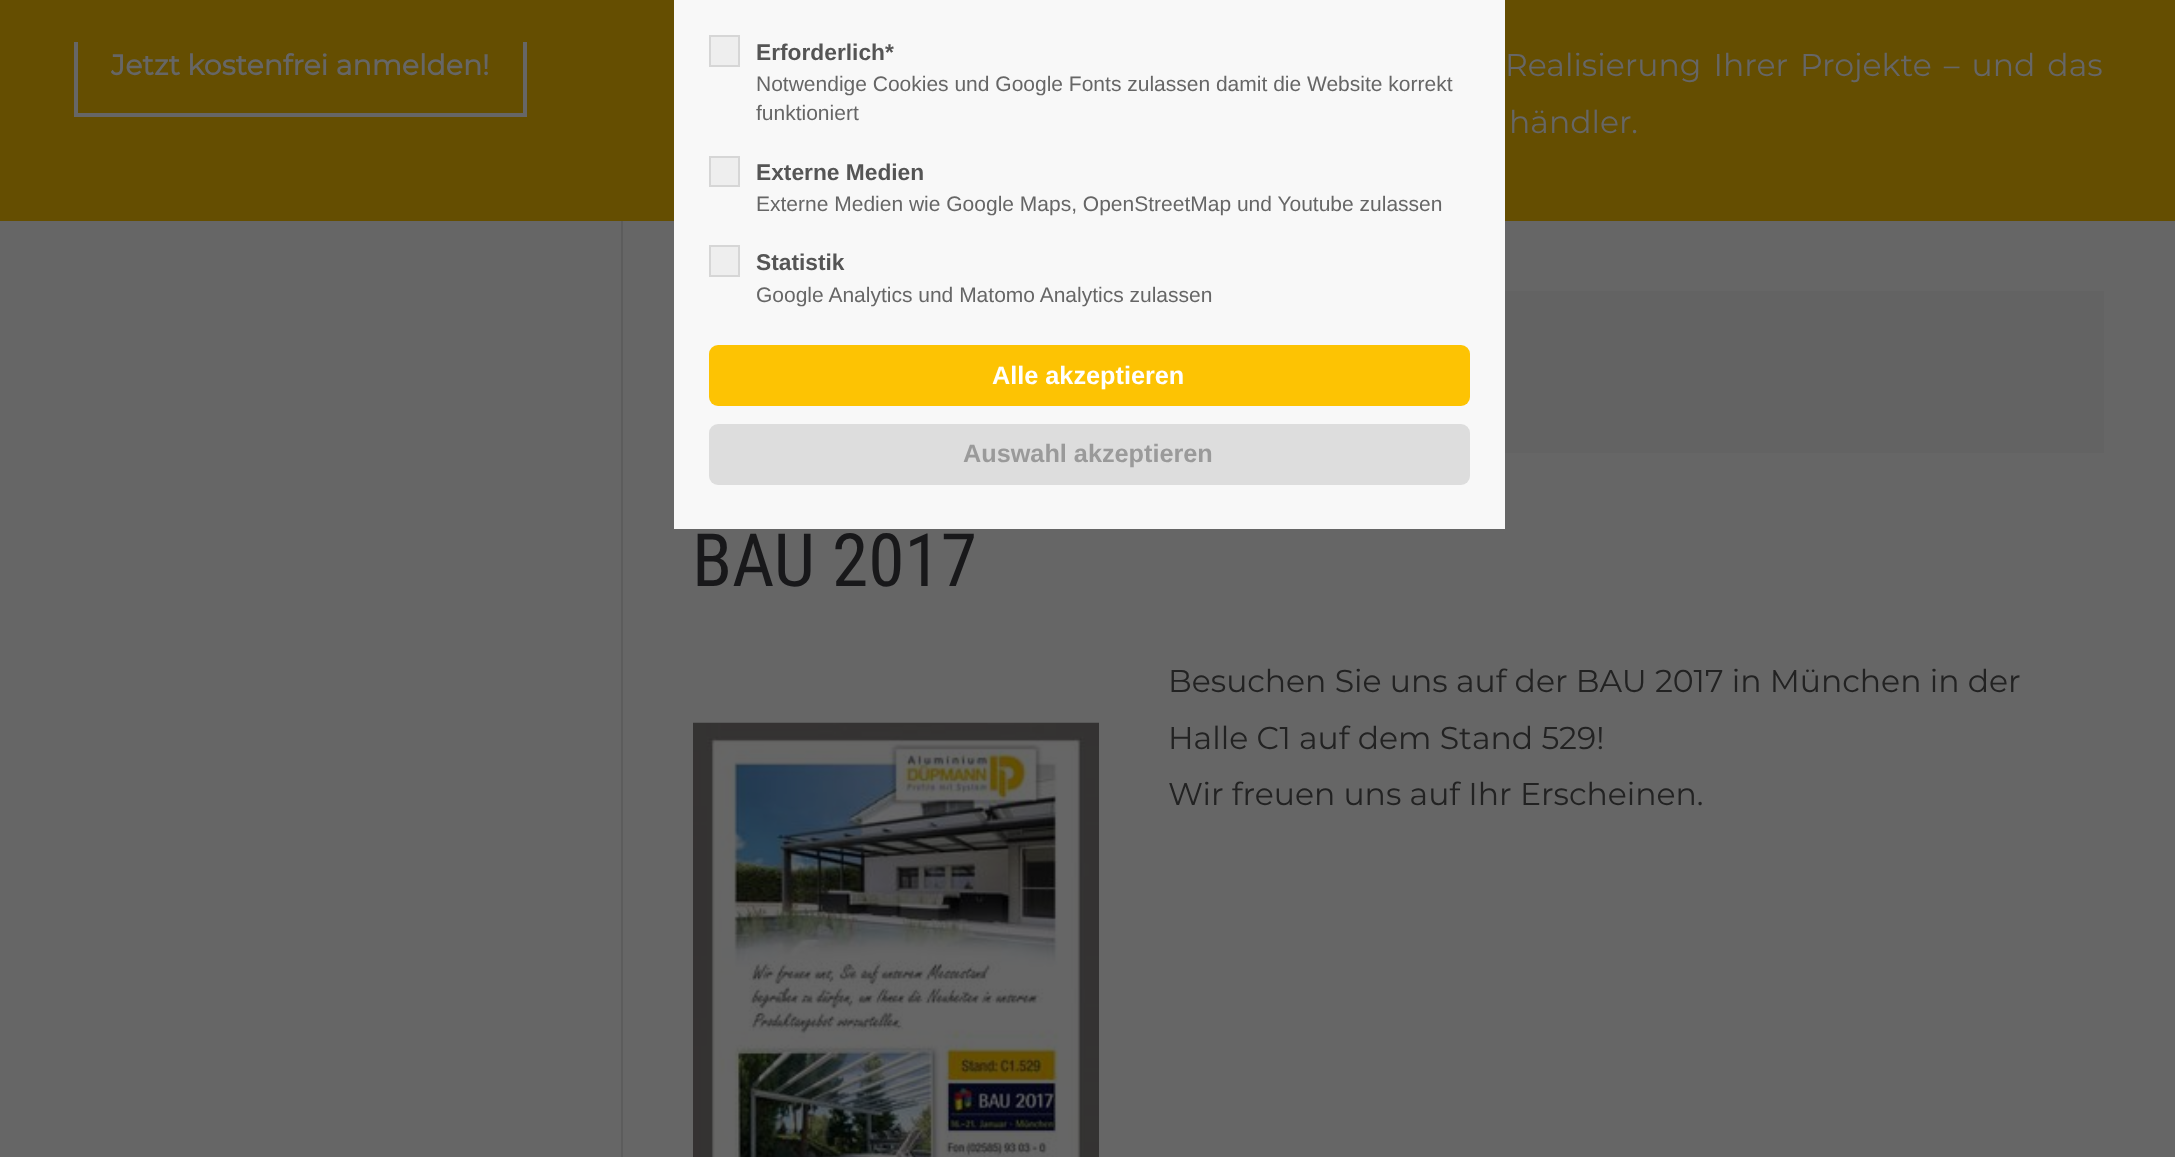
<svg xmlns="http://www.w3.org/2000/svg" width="2175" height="1157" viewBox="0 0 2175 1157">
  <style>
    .t1 { font: bold 22.75px Liberation Sans; fill: #555; }
    .t2 { font: 21px Liberation Sans; fill: #666; }
    .t3 { font: bold 25.25px Liberation Sans; fill: #fff; }
    .t4 { font: bold 25.25px Liberation Sans; fill: #9a9a9a; }
    .t5 { font: bold 28.4px Montserrat; fill: #666; }
    .t6 { font: 100 31.5px Montserrat; fill: #666; }
    .t7 { font: 73.5px Roboto Condensed; fill: #18181a; }
    .t8 { font: 100 31.5px Montserrat; fill: #222; }
  </style>
  <rect width="100%" height="100%" fill="#666"/>
  <rect x="0" y="42" width="2175" height="179" fill="#654e01"/>
  <rect x="76" y="14" width="449" height="101" fill="none" stroke="#666" stroke-width="4"/>
  <rect x="0" y="0" width="2175" height="42" fill="#654e01"/>
  <rect x="674" y="0" width="831" height="529" fill="#f8f8f8"/>
  <rect x="710" y="36" width="29" height="30" fill="#eee" stroke="#d6d6d6" stroke-width="2"/>
  <text x="756" y="60" class="t1">Erforderlich*</text>
  <text x="756" y="91" class="t2">Notwendige Cookies und Google Fonts zulassen damit die Website korrekt</text>
  <text x="756" y="120" class="t2">funktioniert</text>
  <rect x="710" y="157" width="29" height="29" fill="#eee" stroke="#d6d6d6" stroke-width="2"/>
  <text x="756" y="180" class="t1">Externe Medien</text>
  <text x="756" y="211" class="t2">Externe Medien wie Google Maps, OpenStreetMap und Youtube zulassen</text>
  <rect x="710" y="246" width="29" height="30" fill="#eee" stroke="#d6d6d6" stroke-width="2"/>
  <text x="756" y="270" class="t1">Statistik</text>
  <text x="756" y="302" class="t2">Google Analytics und Matomo Analytics zulassen</text>
  <rect x="709" y="345" width="761" height="61" rx="9" fill="#fdc303"/>
  <text x="992" y="384" class="t3">Alle akzeptieren</text>
  <rect x="709" y="424" width="761" height="61" rx="9" fill="#ddd"/>
  <text x="963" y="462" class="t4">Auswahl akzeptieren</text>
  <text x="111" y="75" class="t5">Jetzt kostenfrei anmelden!</text>
  <text x="1505" y="76" word-spacing="3.75" class="t6">Realisierung Ihrer Projekte – und das</text>
  <text x="1509" y="133" class="t6">händler.</text>
  <rect x="621" y="221" width="2" height="936" fill="#5c5c5c"/>
  <rect x="1505" y="291" width="599" height="162" fill="#636363"/>
  <text x="692" y="586" class="t7">BAU 2017</text>
  <image x="693" y="722" width="406" height="435" href="images/1.png"/>
  <text x="1168" y="692" class="t8">Besuchen Sie uns auf der BAU 2017 in München in der</text>
  <text x="1168" y="749" class="t8">Halle C1 auf dem Stand 529!</text>
  <text x="1168" y="805" class="t8">Wir freuen uns auf Ihr Erscheinen.</text>
</svg>
